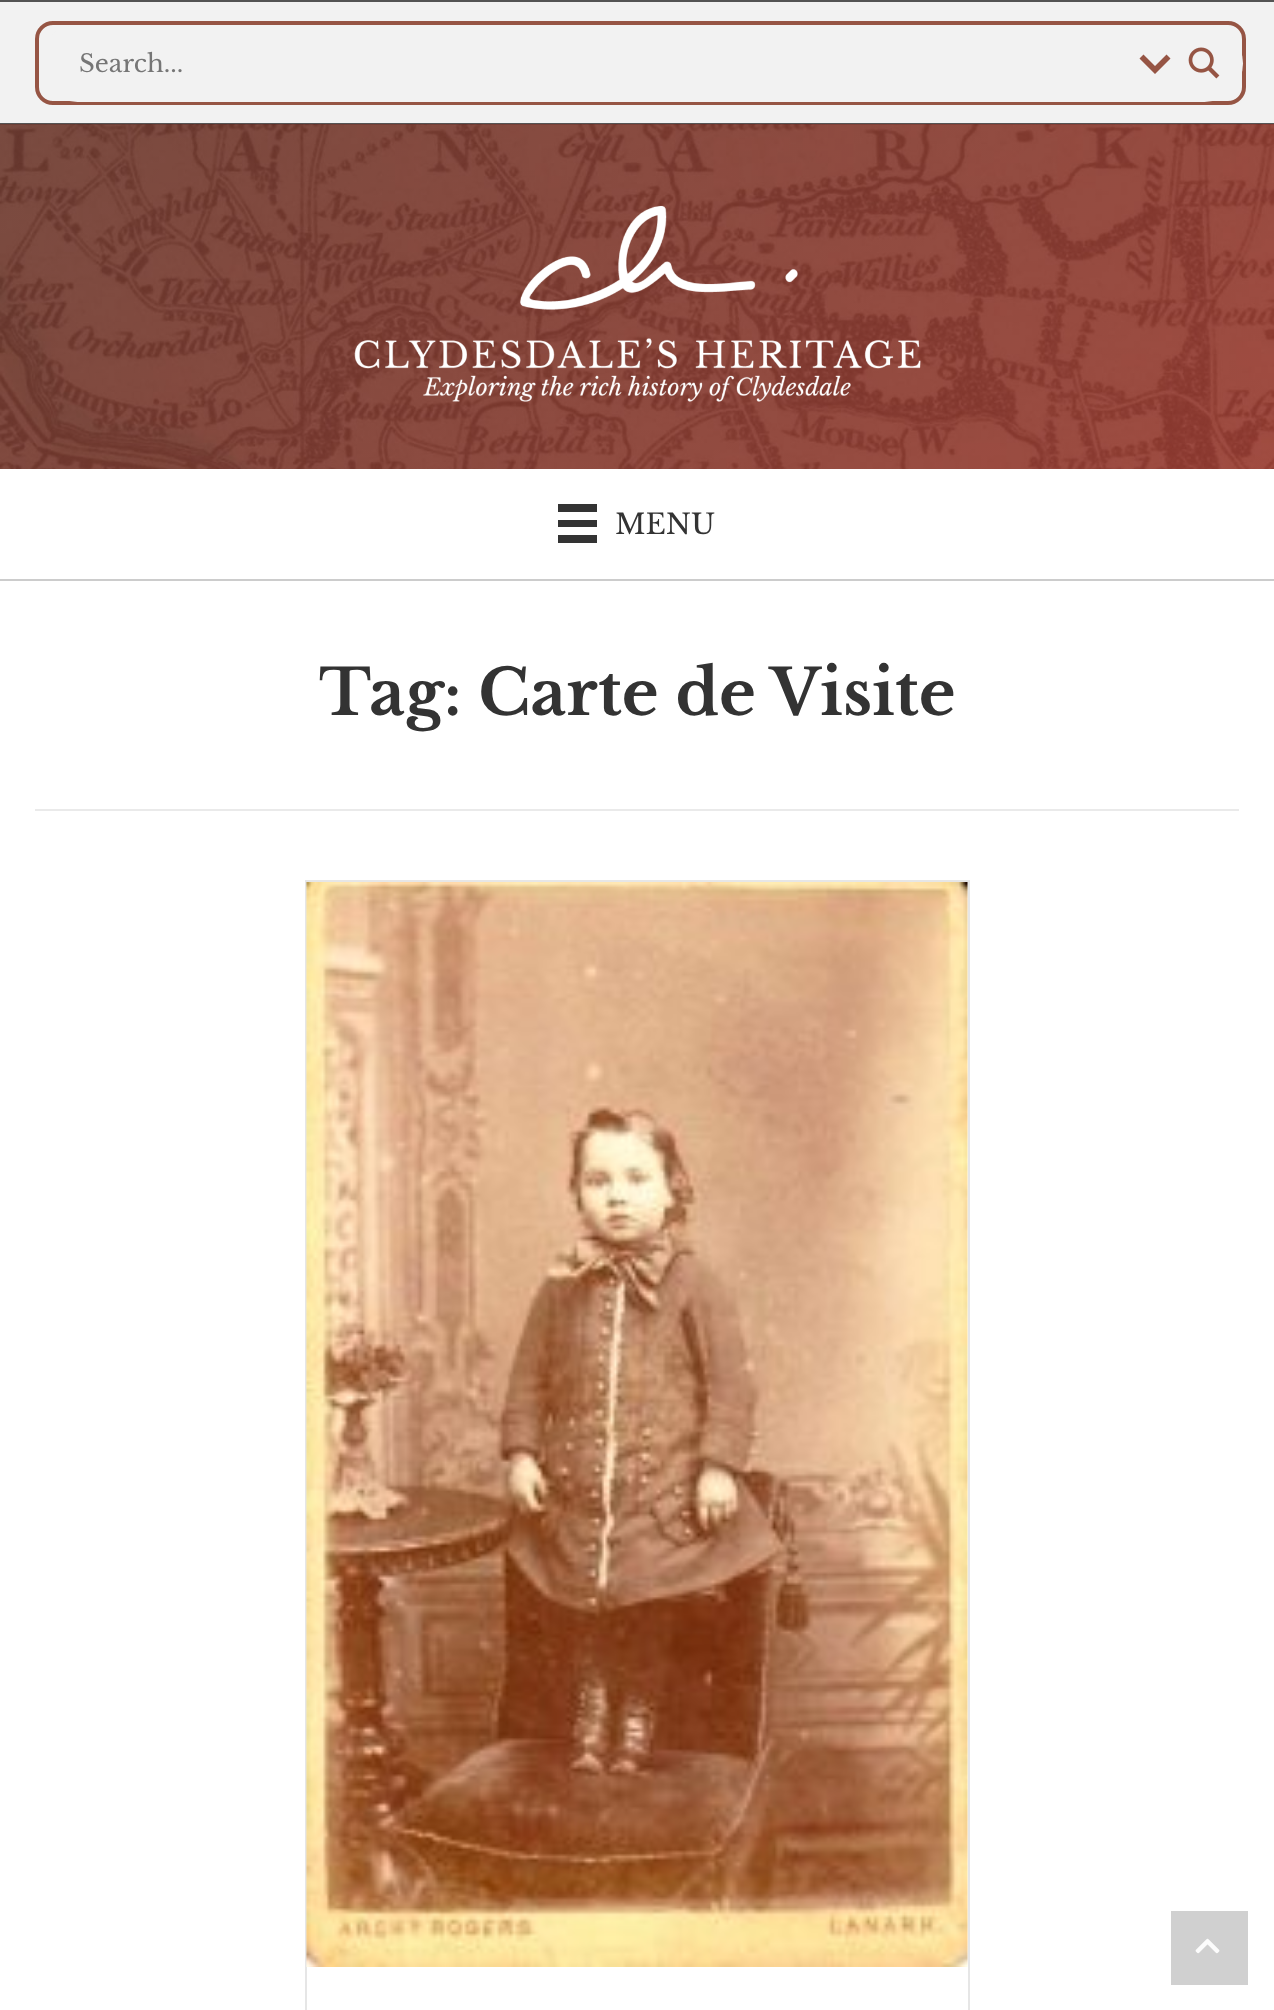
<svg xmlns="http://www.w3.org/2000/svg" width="1274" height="2010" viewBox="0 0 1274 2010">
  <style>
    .t1 { font: 24.5px Libre Baskerville; fill: #767676; }
    .t2 { font: 28px Libre Baskerville; fill: #333; }
    .t3 { font: bold 63px Libre Baskerville; fill: #333; }
  </style>
  <defs>
    <linearGradient id="g1" gradientUnits="userSpaceOnUse" x1="232" y1="-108" x2="1042" y2="701"><stop offset="0" stop-color="#3f0000" stop-opacity="0.64"/><stop offset="1" stop-color="#7c0000" stop-opacity="0.63"/></linearGradient>
  </defs>
  <rect width="100%" height="100%" fill="#f2f2f2"/>
  <rect x="0" y="0" width="1274" height="2" fill="#545454"/>
  <rect x="0" y="123" width="1274" height="2" fill="#545454"/>
  <rect x="37" y="23" width="1207" height="80" rx="16" fill="none" stroke="#965544" stroke-width="4"/>
  <rect x="39" y="25" width="1204" height="77" rx="38.5" fill="#f2f2f2"/>
  <text x="79" y="72" class="t1">Search...</text>
  <path d="M1166.5 54.5L1170.5 58.5L1155 74L1139.5 58.5L1143.5 54.5L1155 66Z" fill="#965544"/>
  <image x="1188" y="47" width="32" height="32" href="images/1.png"/>
  <image x="0" y="124" width="1274" height="345" href="images/2.png"/>
  <rect x="0" y="124" width="1274" height="345" fill="url(#g1)"/>
  <image x="354" y="205" width="567" height="197" href="images/3.png"/>
  <rect x="0" y="469" width="1274" height="110" fill="#fff"/>
  <rect x="0" y="579" width="1274" height="2" fill="#ccc"/>
  <rect x="558" y="504" width="39" height="8" fill="#333"/>
  <rect x="558" y="520" width="39" height="7" fill="#333"/>
  <rect x="558" y="535" width="39" height="8" fill="#333"/>
  <text x="615" y="534" class="t2">MENU</text>
  <rect x="0" y="581" width="1274" height="1429" fill="#fff"/>
  <text x="319" y="715" class="t3">Tag: Carte de Visite</text>
  <rect x="35" y="809" width="1204" height="2" fill="#eaeaea"/>
  <rect x="306" y="881" width="663" height="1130" fill="none" stroke="#e6e6e6" stroke-width="2"/>
  <image x="306" y="882" width="662" height="1085" href="images/4.png"/>
  <rect x="1171" y="1911" width="77" height="74" fill="#d0d0d0"/>
  <image x="1195" y="1938" width="25" height="16" href="images/5.png"/>
</svg>
